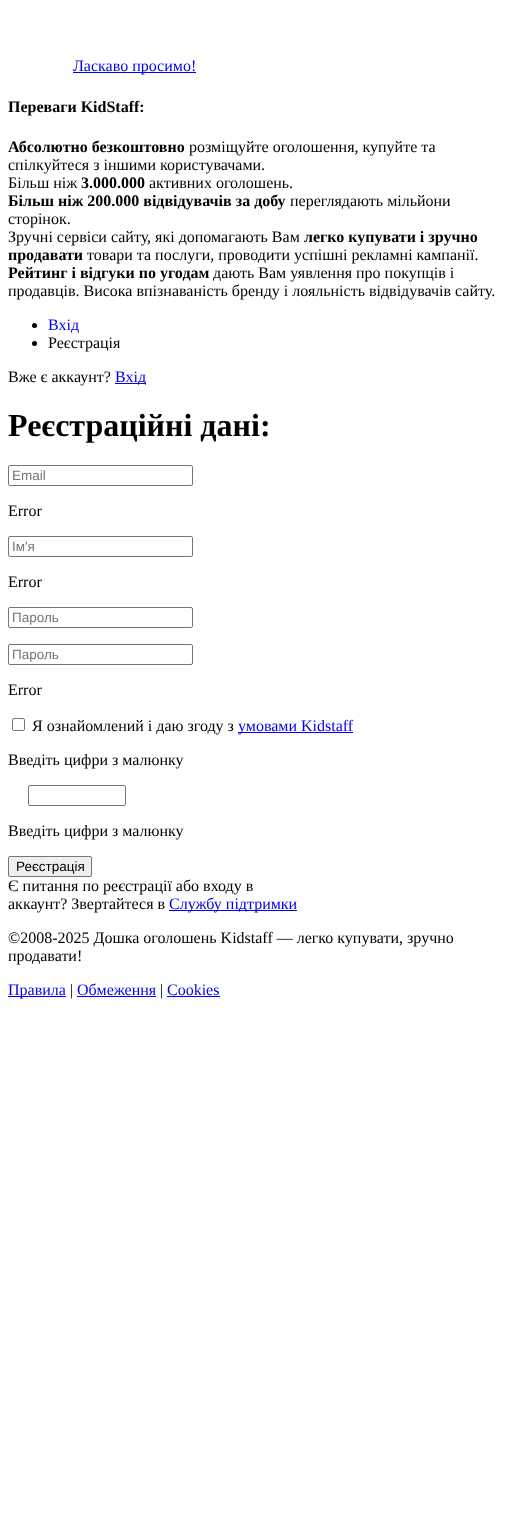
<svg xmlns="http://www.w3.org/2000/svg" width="522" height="1523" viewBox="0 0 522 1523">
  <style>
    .t1 { font: 16px Liberation Serif; fill: #00e; }
    .t2 { font: bold 16px Liberation Serif; fill: #000; }
    .t3 { font: 16px Liberation Serif; fill: #000; }
    .t4 { font: bold 32px Liberation Serif; fill: #000; }
    .t5 { font: 13.5px Liberation Sans; fill: #757575; }
    .t6 { font: 13.5px Liberation Sans; fill: #000; }
  </style>
  <rect width="100%" height="100%" fill="#fff"/>
  <rect x="73" y="72" width="123" height="1" fill="#00e"/>
  <text x="73" y="71" class="t1">Ласкаво просимо!</text>
  <text x="8" y="112" class="t2">Переваги KidStaff:</text>
  <text x="8" y="152" class="t2">Абсолютно безкоштовно</text>
  <text x="189" y="152" class="t3">розміщуйте оголошення, купуйте та</text>
  <text x="8" y="170" class="t3">спілкуйтеся з іншими користувачами.</text>
  <text x="8" y="188" class="t3">Більш ніж</text>
  <text x="81" y="188" class="t2">3.000.000</text>
  <text x="149" y="188" class="t3">активних оголошень.</text>
  <text x="8" y="206" class="t2">Більш ніж 200.000 відвідувачів за добу</text>
  <text x="290" y="206" class="t3">переглядають мільйони</text>
  <text x="8" y="224" class="t3">сторінок.</text>
  <text x="8" y="242" class="t3">Зручні сервіси сайту, які допомагають Вам</text>
  <text x="304" y="242" class="t2">легко купувати і зручно</text>
  <text x="8" y="260" class="t2">продавати</text>
  <text x="87" y="260" class="t3">товари та послуги, проводити успішні рекламні кампанії.</text>
  <text x="8" y="278" class="t2">Рейтинг і відгуки по угодам</text>
  <text x="213" y="278" class="t3">дають Вам уявлення про покупців і</text>
  <text x="8" y="296" class="t3">продавців. Висока впізнаваність бренду і лояльність відвідувачів сайту.</text>
  <circle cx="34.5" cy="325.5" r="2.5" fill="#000"/>
  <text x="48" y="330" class="t1">Вхід</text>
  <circle cx="34.5" cy="343.5" r="2.5" fill="#000"/>
  <text x="48" y="348" class="t3">Реєстрація</text>
  <text x="8" y="382" class="t3">Вже є аккаунт?</text>
  <rect x="115" y="383" width="31" height="1" fill="#00e"/>
  <text x="115" y="382" class="t1">Вхід</text>
  <text x="8" y="436" class="t4">Реєстраційні дані:</text>
  <rect x="8.5" y="465.5" width="184" height="20" rx="1.5" fill="none" stroke="#767676"/>
  <text x="12" y="480" class="t5">Email</text>
  <text x="8" y="516" class="t3">Error</text>
  <rect x="8.5" y="536.5" width="184" height="20" rx="1.5" fill="none" stroke="#767676"/>
  <text x="12" y="551" class="t5">Ім'я</text>
  <text x="8" y="587" class="t3">Error</text>
  <rect x="8.5" y="607.5" width="184" height="20" rx="1.5" fill="none" stroke="#767676"/>
  <text x="12" y="622" class="t5">Пароль</text>
  <rect x="8.5" y="644.5" width="184" height="20" rx="1.5" fill="none" stroke="#767676"/>
  <text x="12" y="659" class="t5">Пароль</text>
  <text x="8" y="695" class="t3">Error</text>
  <rect x="12.5" y="718.5" width="12" height="12" rx="1.5" fill="none" stroke="#767676"/>
  <text x="32" y="731" class="t3">Я ознайомлений і даю згоду з</text>
  <rect x="238" y="732" width="115" height="1" fill="#00e"/>
  <text x="238" y="731" class="t1">умовами Kidstaff</text>
  <text x="8" y="765" class="t3">Введіть цифри з малюнку</text>
  <rect x="28.5" y="785.5" width="97" height="20" rx="1.5" fill="none" stroke="#767676"/>
  <text x="8" y="836" class="t3">Введіть цифри з малюнку</text>
  <rect x="8.5" y="856.5" width="83" height="20" rx="1.5" fill="#efefef" stroke="#767676"/>
  <text x="16" y="871" class="t6">Реєстрація</text>
  <text x="8" y="891" class="t3">Є питання по реєстрації або входу в</text>
  <text x="8" y="909" class="t3">аккаунт? Звертайтеся в</text>
  <rect x="169" y="910" width="128" height="1" fill="#00e"/>
  <text x="169" y="909" class="t1">Службу підтримки</text>
  <text x="8" y="943" class="t3">©2008-2025 Дошка оголошень Kidstaff — легко купувати, зручно</text>
  <text x="8" y="961" class="t3">продавати!</text>
  <rect x="8" y="996" width="58" height="1" fill="#00e"/>
  <text x="8" y="995" class="t1">Правила</text>
  <text x="70" y="995" class="t3">|</text>
  <text x="77" y="995" class="t1">Обмеження</text>
  <rect x="77" y="996" width="79" height="1" fill="#00e"/>
  <text x="160" y="995" class="t3">|</text>
  <text x="167" y="995" class="t1">Cookies</text>
  <rect x="167" y="996" width="53" height="1" fill="#00e"/>
</svg>
